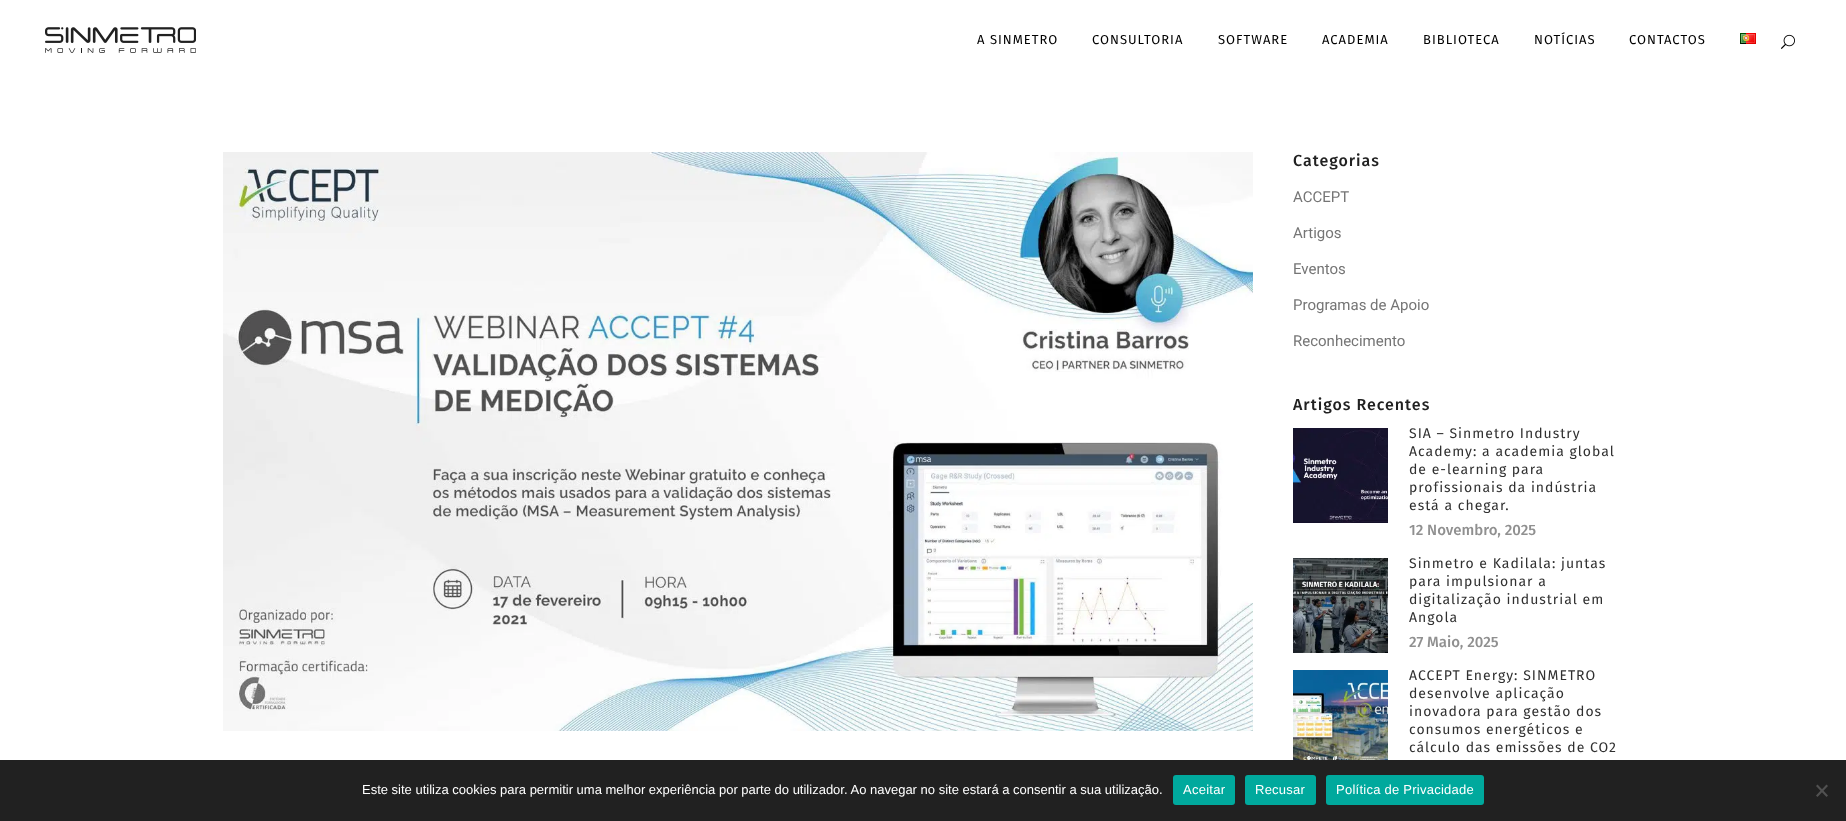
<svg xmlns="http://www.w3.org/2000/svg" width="1846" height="821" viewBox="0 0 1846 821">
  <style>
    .t1 { font: 13px Fira Sans; letter-spacing: 1px; fill: #000; }
    .t2 { font: 500 16px Fira Sans; letter-spacing: 1px; fill: #212121; }
    .t3 { font: 15px Roboto; fill: #757575; }
    .t4 { font: 14px Fira Sans; letter-spacing: 1px; fill: #303030; }
    .t5 { font: 500 15px Fira Sans; fill: #909090; }
    .t6 { font: 13px Liberation Sans; fill: #fff; }
    .t7 { font: 13px Liberation Sans; letter-spacing: 0.25px; fill: #fff; }
  </style>
  <rect width="100%" height="100%" fill="#fff"/>
  <image x="45" y="27" width="151" height="26" href="images/1.png"/>
  <text x="977" y="44" class="t1">A SINMETRO</text>
  <text x="1092" y="44" class="t1">CONSULTORIA</text>
  <text x="1218" y="44" class="t1">SOFTWARE</text>
  <text x="1322" y="44" class="t1">ACADEMIA</text>
  <text x="1423" y="44" class="t1">BIBLIOTECA</text>
  <text x="1534" y="44" class="t1">NOTÍCIAS</text>
  <text x="1629" y="44" class="t1">CONTACTOS</text>
  <image x="1740" y="33" width="16" height="11" href="images/2.png"/>
  <image x="1781" y="34" width="14" height="15" href="images/3.png"/>
  <image x="223" y="152" width="1030" height="579" href="images/4.png"/>
  <text x="1293" y="166" class="t2">Categorias</text>
  <text x="1293" y="202" class="t3">ACCEPT</text>
  <text x="1293" y="238" class="t3">Artigos</text>
  <text x="1293" y="274" class="t3">Eventos</text>
  <text x="1293" y="310" class="t3">Programas de Apoio</text>
  <text x="1293" y="346" class="t3">Reconhecimento</text>
  <text x="1293" y="410" class="t2">Artigos Recentes</text>
  <image x="1293" y="428" width="95" height="95" href="images/5.png"/>
  <text x="1409" y="438" class="t4">SIA – Sinmetro Industry</text>
  <text x="1409" y="456" class="t4">Academy: a academia global</text>
  <text x="1409" y="474" class="t4">de e-learning para</text>
  <text x="1409" y="492" class="t4">profissionais da indústria</text>
  <text x="1409" y="510" class="t4">está a chegar.</text>
  <text x="1409" y="535" class="t5">12 Novembro, 2025</text>
  <image x="1293" y="558" width="95" height="95" href="images/6.png"/>
  <text x="1409" y="568" class="t4">Sinmetro e Kadilala: juntas</text>
  <text x="1409" y="586" class="t4">para impulsionar a</text>
  <text x="1409" y="604" class="t4">digitalização industrial em</text>
  <text x="1409" y="622" class="t4">Angola</text>
  <text x="1409" y="647" class="t5">27 Maio, 2025</text>
  <image x="1293" y="670" width="95" height="90" href="images/7.png"/>
  <text x="1409" y="680" class="t4">ACCEPT Energy: SINMETRO</text>
  <text x="1409" y="698" class="t4">desenvolve aplicação</text>
  <text x="1409" y="716" class="t4">inovadora para gestão dos</text>
  <text x="1409" y="734" class="t4">consumos energéticos e</text>
  <text x="1409" y="752" class="t4">cálculo das emissões de CO2</text>
  <rect x="0" y="760" width="1846" height="61" fill="#212121"/>
  <text x="362" y="794" class="t6">Este site utiliza cookies para permitir uma melhor experiência por parte do utilizador. Ao navegar no site estará a consentir a sua utilização.</text>
  <rect x="1173" y="775" width="62" height="30" rx="3" fill="#00a99d"/>
  <text x="1183" y="794" class="t7">Aceitar</text>
  <rect x="1245" y="775" width="71" height="30" rx="3" fill="#00a99d"/>
  <text x="1255" y="794" class="t7">Recusar</text>
  <rect x="1326" y="775" width="158" height="30" rx="3" fill="#00a99d"/>
  <text x="1336" y="794" class="t7">Política de Privacidade</text>
  <path d="M1826.5 784.5L1828 786L1817.5 797L1816 795.5Z" fill="#515151"/>
  <path d="M1816 786L1817.5 784.5L1828 795.5L1826.5 797Z" fill="#515151"/>
</svg>
